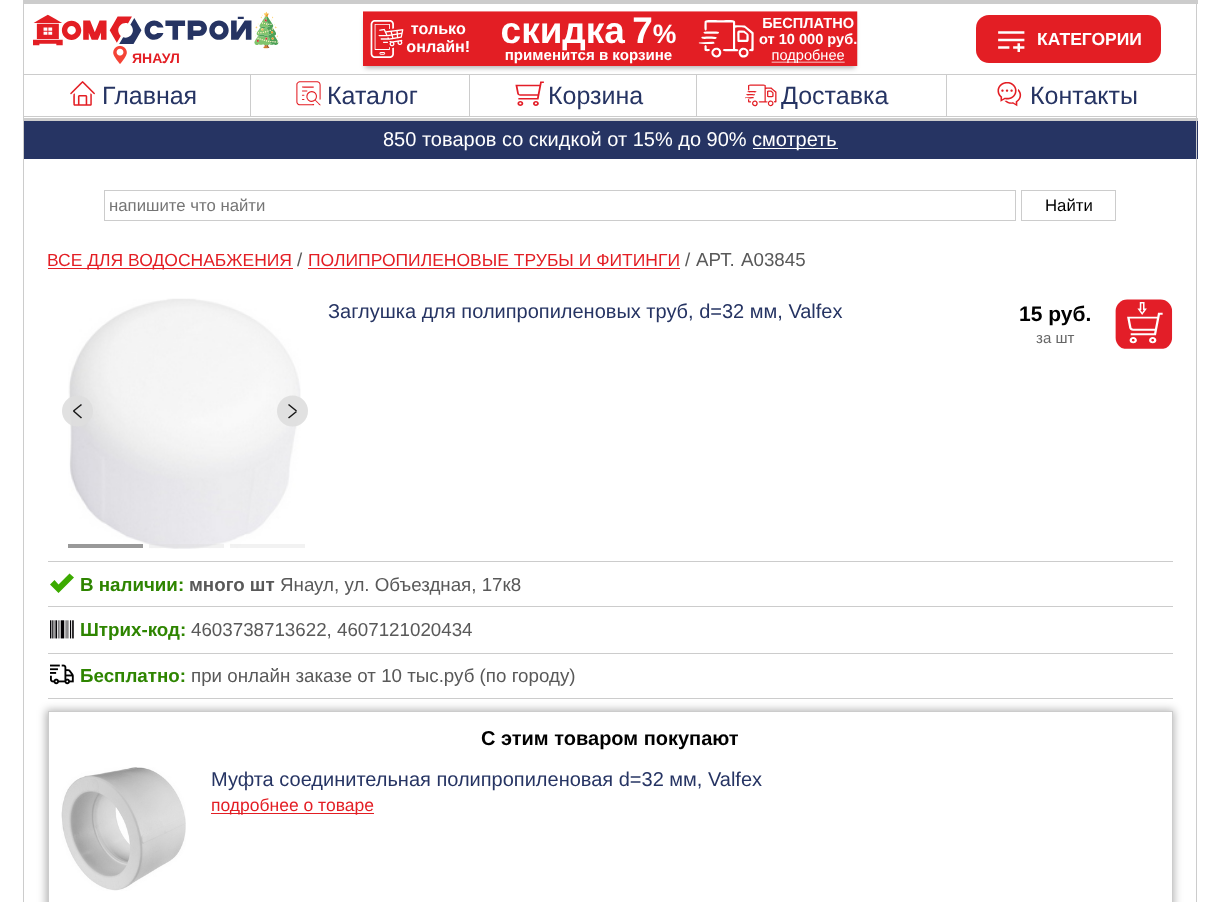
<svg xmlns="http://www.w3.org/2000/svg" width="1219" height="902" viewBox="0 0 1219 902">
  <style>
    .t1 { font: bold 17.5px Liberation Sans; fill: #fff; }
    .t2 { font: bold 14px Liberation Sans; fill: #e31e24; }
    .t3 { font: 25px Liberation Sans; fill: #263463; }
    .t4 { font: 20px Liberation Sans; fill: #fff; }
    .t5 { font: 16.75px Liberation Sans; fill: #757575; }
    .t6 { font: 16.75px Liberation Sans; fill: #000; }
    .t7 { font: 17.5px Liberation Sans; fill: #e31e24; }
    .t8 { font: 18.75px Liberation Sans; fill: #595959; }
    .t9 { font: 20px Liberation Sans; fill: #263463; }
    .t10 { font: bold 21px Liberation Sans; fill: #000; }
    .t11 { font: 15px Liberation Sans; fill: #666; }
    .t12 { font: bold 18.75px Liberation Sans; fill: #2e8500; }
    .t13 { font: bold 18.75px Liberation Sans; fill: #595959; }
    .t14 { font: bold 20px Liberation Sans; fill: #000; }
  </style>
  <defs>
    <clipPath id="clip1"><path d="M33 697H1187V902H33ZM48 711H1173V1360H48Z" clip-rule="evenodd"/></clipPath>
  </defs>
  <rect width="100%" height="100%" fill="#fff"/>
  <rect x="24" y="74" width="1172" height="1" fill="#ccc"/>
  <rect x="469" y="75" width="1" height="41" fill="#ccc"/>
  <rect x="696" y="75" width="1" height="41" fill="#ccc"/>
  <rect x="365" y="18" width="490" height="50" fill="#0000004d" filter="blur(2.5px)"/>
  <image x="363" y="11" width="495" height="55" href="images/1.png"/>
  <rect x="23" y="0" width="1175" height="4" fill="#ccc"/>
  <rect x="1196" y="0" width="1" height="121" fill="#ccc"/>
  <rect x="23" y="118" width="1175" height="3" fill="#ccc"/>
  <rect x="23" y="0" width="1" height="902" fill="#ccc"/>
  <rect x="976" y="15" width="185" height="48" rx="13" fill="#e31e24"/>
  <image x="998" y="31" width="27" height="21" href="images/2.png"/>
  <text x="1037" y="45" class="t1">КАТЕГОРИИ</text>
  <image x="33" y="11" width="246" height="38" href="images/3.png"/>
  <image x="113" y="45" width="14" height="19" href="images/4.png"/>
  <text x="132" y="63" class="t2">ЯНАУЛ</text>
  <rect x="24" y="116" width="1172" height="1" fill="#ccc"/>
  <rect x="250" y="75" width="1" height="41" fill="#ccc"/>
  <image x="70" y="81" width="25" height="25" href="images/5.png"/>
  <text x="102" y="104" class="t3">Главная</text>
  <image x="296" y="81" width="25" height="25" href="images/6.png"/>
  <text x="327" y="104" class="t3">Каталог</text>
  <image x="515" y="81" width="29" height="25" href="images/7.png"/>
  <text x="548" y="104" class="t3">Корзина</text>
  <rect x="946" y="75" width="1" height="41" fill="#ccc"/>
  <image x="745" y="84" width="32" height="23" href="images/8.png"/>
  <text x="781" y="104" class="t3">Доставка</text>
  <image x="997" y="82" width="25" height="25" href="images/9.png"/>
  <text x="1030" y="104" class="t3">Контакты</text>
  <rect x="24" y="121" width="1174" height="38" fill="#263463"/>
  <rect x="1196" y="121" width="1" height="781" fill="#ccc"/>
  <text x="383" y="146" class="t4">850 товаров со скидкой от 15% до 90%</text>
  <rect x="753" y="148" width="85" height="1" fill="#fff"/>
  <text x="752" y="146" class="t4">смотреть</text>
  <rect x="104.5" y="190.5" width="911" height="30" fill="none" stroke="#ccc"/>
  <text x="109" y="211" class="t5">напишите что найти</text>
  <rect x="1021.5" y="190.5" width="94" height="30" fill="none" stroke="#ccc"/>
  <text x="1045" y="211" class="t6">Найти</text>
  <rect x="48" y="268" width="245" height="1" fill="#e31e24"/>
  <text x="47" y="266" class="t7">ВСЕ ДЛЯ ВОДОСНАБЖЕНИЯ</text>
  <text x="297" y="266" class="t8">/</text>
  <text x="308" y="266" class="t7">ПОЛИПРОПИЛЕНОВЫЕ ТРУБЫ И ФИТИНГИ</text>
  <rect x="308" y="268" width="372" height="1" fill="#e31e24"/>
  <text x="685" y="266" class="t8">/</text>
  <text x="696" y="266" word-spacing="1" class="t8">АРТ. A03845</text>
  <rect x="48" y="561" width="1125" height="1" fill="#ccc"/>
  <image x="68" y="298" width="233" height="251" href="images/10.png"/>
  <text x="328" y="318" class="t9">Заглушка для полипропиленовых труб, d=32 мм, Valfex</text>
  <text x="1019" y="321" class="t10">15 руб.</text>
  <image x="1115" y="299" width="58" height="50" href="images/11.png"/>
  <text x="1036" y="343" class="t11">за шт</text>
  <circle cx="77.5" cy="411" r="15.5" fill="#dededee6"/>
  <path d="M81.5 404.5L73.5 411" fill="none" stroke="#161616" stroke-width="1.5"/>
  <path d="M81.5 418L73.5 411" fill="none" stroke="#000000e6" stroke-width="1.5"/>
  <circle cx="292.5" cy="411" r="15.5" fill="#dededee6"/>
  <path d="M288.5 418L296.5 411.5M288.5 404.5L296.5 411" fill="none" stroke="#161616" stroke-width="1.5"/>
  <rect x="68" y="544" width="75" height="4" fill="#999"/>
  <rect x="149" y="544" width="75" height="4" fill="#dedede66"/>
  <rect x="230" y="544" width="75" height="4" fill="#dedede66"/>
  <rect x="48" y="606" width="1125" height="1" fill="#ccc"/>
  <path d="M69.5 573.5L58.5 584.5L54.5 580L50 584.5L58.5 593L74 577.5Z" fill="#3caa00"/>
  <text x="80" y="591" class="t12">В наличии:</text>
  <text x="189" y="591" class="t13">много шт</text>
  <text x="280" y="591" class="t8">Янаул, ул. Объездная, 17к8</text>
  <rect x="48" y="653" width="1125" height="1" fill="#ccc"/>
  <image x="50" y="620" width="24" height="19" href="images/12.png"/>
  <text x="80" y="636" class="t12">Штрих-код:</text>
  <text x="191" y="636" class="t8">4603738713622, 4607121020434</text>
  <rect x="48" y="698" width="1125" height="1" fill="#ccc"/>
  <image x="50" y="664" width="24" height="21" href="images/13.png"/>
  <text x="80" y="682" class="t12">Бесплатно:</text>
  <text x="191" y="682" class="t8">при онлайн заказе от 10 тыс.руб (по городу)</text>
  <g clip-path="url(#clip1)">
    <rect x="46" y="710" width="1128" height="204" fill="#0000004d" filter="blur(4px)"/>
  </g>
  <rect x="48.5" y="711.5" width="1124" height="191" fill="none" stroke="#ccc"/>
  <text x="481" y="745" class="t14">С этим товаром покупают</text>
  <image x="61" y="767" width="125" height="124" href="images/14.png"/>
  <text x="211" y="786" class="t9">Муфта соединительная полипропиленовая d=32 мм, Valfex</text>
  <rect x="211" y="813" width="163" height="1" fill="#e31e24"/>
  <text x="211" y="811" class="t7">подробнее о товаре</text>
</svg>
